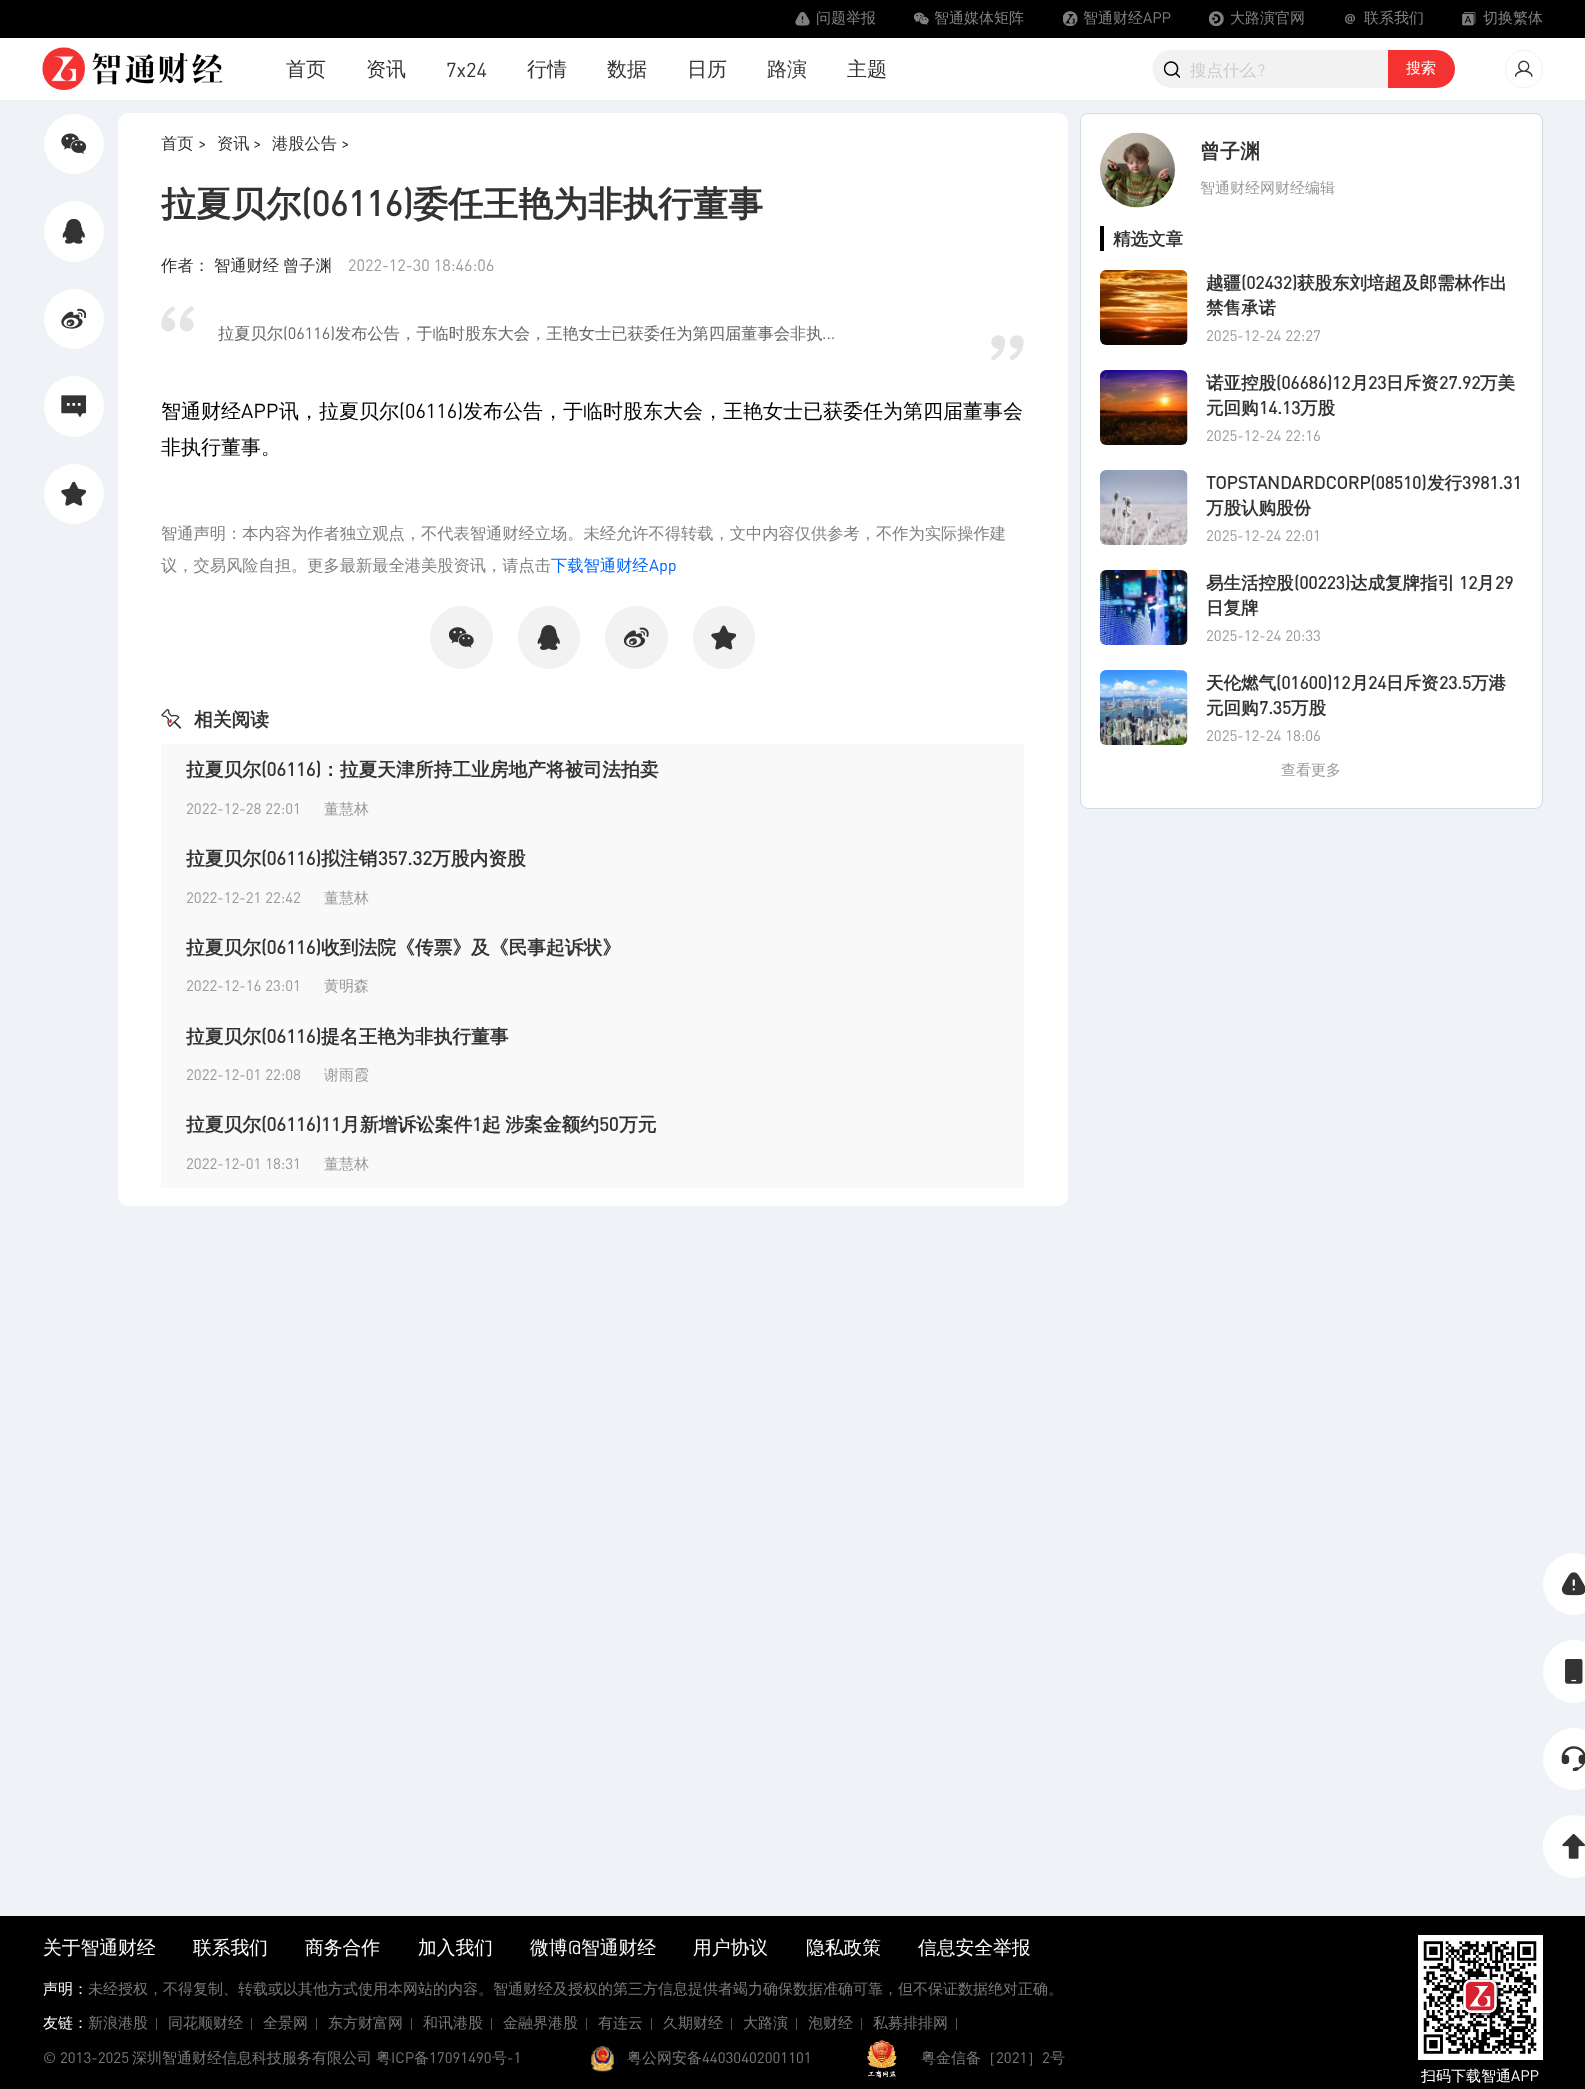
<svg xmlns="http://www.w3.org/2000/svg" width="1585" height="2089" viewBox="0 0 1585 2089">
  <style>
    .t1 { font: 500 15px WenQuanYi Zen Hei; fill: #808080; }
    .t2 { font: 15px DIN; fill: #808080; }
    .t3 { font: 500 20px WenQuanYi Zen Hei; fill: #333; }
    .t4 { font: 20px DIN; fill: #333; }
    .t5 { font: 500 16.5px WenQuanYi Zen Hei; fill: #ccc; }
    .t6 { font: 16.5px DIN; fill: #ccc; }
    .t7 { font: 500 15px WenQuanYi Zen Hei; fill: #fff; }
    .t8 { font: 500 16.25px WenQuanYi Zen Hei; fill: #333; }
    .t9 { font: 16.25px DIN; fill: #333; }
    .t10 { font: bold 35px WenQuanYi Zen Hei; fill: #333; }
    .t11 { font: bold 35px DIN; fill: #333; }
    .t12 { font: 16.25px DIN; fill: #999; }
    .t13 { font: 500 16.25px WenQuanYi Zen Hei; fill: #666; }
    .t14 { font: 16.25px DIN; fill: #666; }
    .t15 { font: 500 20px WenQuanYi Zen Hei; fill: #000; }
    .t16 { font: 20px DIN; fill: #000; }
    .t17 { font: 500 16.25px WenQuanYi Zen Hei; fill: #808080; }
    .t18 { font: 500 16.25px WenQuanYi Zen Hei; fill: #06f; }
    .t19 { font: 16.25px DIN; fill: #06f; }
    .t20 { font: bold 18.75px WenQuanYi Zen Hei; fill: #333; }
    .t21 { font: bold 18.75px DIN; fill: #333; }
    .t22 { font: 15px DIN; fill: #999; }
    .t23 { font: 500 15px WenQuanYi Zen Hei; fill: #999; }
    .t24 { font: bold 20px WenQuanYi Zen Hei; fill: #333; }
    .t25 { font: bold 17.5px WenQuanYi Zen Hei; fill: #333; }
    .t26 { font: bold 17.5px DIN; fill: #333; }
    .t27 { font: 500 18.75px WenQuanYi Zen Hei; fill: #fff; }
    .t28 { font: 18.75px DIN; fill: #fff; }
    .t29 { font: 500 15px WenQuanYi Zen Hei; fill: #797979; }
    .t30 { font: 15px DIN; fill: #797979; }
    .t31 { font: 15px DIN; fill: #fff; }
  </style>
  <rect width="100%" height="100%" fill="#eff2f6"/>
  <rect x="0" y="38" width="1585" height="62" fill="#fff"/>
  <rect x="0" y="0" width="1585" height="38" fill="#000"/>
  <image x="795" y="12" width="15" height="14" href="images/1.png"/>
  <text x="816" y="23" class="t1">问题举报</text>
  <image x="914" y="12" width="15" height="13" href="images/2.png"/>
  <text x="934" y="23" class="t1">智通媒体矩阵</text>
  <image x="1063" y="11" width="15" height="15" href="images/3.png"/>
  <text x="1083" y="23" class="t1">智通财经</text>
  <text x="1143" y="23" class="t2">APP</text>
  <image x="1209" y="11" width="15" height="15" href="images/4.png"/>
  <text x="1230" y="23" class="t1">大路演官网</text>
  <image x="1345" y="14" width="10" height="10" href="images/5.png"/>
  <text x="1364" y="23" class="t1">联系我们</text>
  <image x="1462" y="12" width="14" height="14" href="images/6.png"/>
  <text x="1483" y="23" class="t1">切换繁体</text>
  <image x="42" y="47" width="181" height="43" href="images/7.png"/>
  <text x="286" y="76" class="t3">首页</text>
  <text x="366" y="76" class="t3">资讯</text>
  <text x="446" y="77" class="t4">7x24</text>
  <text x="527" y="76" class="t3">行情</text>
  <text x="607" y="76" class="t3">数据</text>
  <text x="687" y="76" class="t3">日历</text>
  <text x="767" y="76" class="t3">路演</text>
  <text x="847" y="76" class="t3">主题</text>
  <rect x="1153" y="50" width="302" height="38" rx="19" fill="#f2f2f2"/>
  <path d="M1171 50H1190V87.5H1171C1161 87.5 1152.5 79 1152.5 69C1152.5 58.5 1161 50 1171 50ZM1171 51H1190V86H1171C1161.5 86 1154 78.5 1154 69C1154 59 1161.5 51 1171 51Z" fill="#f2f2f2" fill-rule="evenodd"/>
  <image x="1164" y="61" width="16" height="17" href="images/8.png"/>
  <text x="1190" y="76" class="t5">搜点什么</text>
  <text x="1257" y="76" class="t6">?</text>
  <path d="M1388 50H1436C1446.5 50 1455 58.5 1455 69C1455 79.5 1446.5 88 1436 88H1388Z" fill="#f53232"/>
  <text x="1406" y="73" class="t7">搜索</text>
  <circle cx="1524" cy="69" r="18.5" fill="none" stroke="#f2f2f2"/>
  <image x="1515" y="60" width="18" height="17" href="images/9.png"/>
  <circle cx="74" cy="144" r="30.5" fill="#fff" stroke="#f2f2f2"/>
  <image x="61" y="133" width="25" height="21" href="images/10.png"/>
  <rect x="43.5" y="200.5" width="61" height="62" rx="30.5" fill="#fff" stroke="#f2f2f2"/>
  <image x="62" y="219" width="23" height="25" href="images/11.png"/>
  <circle cx="74" cy="319" r="30.5" fill="#fff" stroke="#f2f2f2"/>
  <image x="61" y="308" width="25" height="21" href="images/12.png"/>
  <rect x="43.5" y="375.5" width="61" height="62" rx="30.5" fill="#fff" stroke="#f2f2f2"/>
  <image x="61" y="395" width="25" height="23" href="images/13.png"/>
  <circle cx="74" cy="494" r="30.5" fill="#fff" stroke="#f2f2f2"/>
  <image x="61" y="481" width="25" height="25" href="images/14.png"/>
  <rect x="118" y="113" width="950" height="1093" rx="10" fill="#fff"/>
  <text x="161" y="149" class="t8">首页</text>
  <text x="198" y="149" class="t9">&gt;</text>
  <text x="217" y="149" class="t8">资讯</text>
  <text x="253" y="149" class="t9">&gt;</text>
  <text x="272" y="149" class="t8">港股公告</text>
  <text x="341" y="149" class="t9">&gt;</text>
  <text x="161" y="216" class="t10">拉夏贝尔</text>
  <text x="301" y="216" class="t11">(06116)</text>
  <text x="413" y="216" class="t10">委任王艳为非执行董事</text>
  <text x="161" y="271" class="t8">作者：</text>
  <text x="214" y="271" class="t8">智通财经</text>
  <text x="283" y="271" class="t8">曾子渊</text>
  <text x="348" y="271" class="t12">2022-12-30 18:46:06</text>
  <image x="161" y="306" width="33" height="26" href="images/15.png"/>
  <text x="218" y="339" class="t13">拉夏贝尔</text>
  <text x="283" y="339" class="t14">(06116)</text>
  <text x="335" y="339" class="t13">发布公告，于临时股东大会，王艳女士已获委任为第四届董事会非执</text>
  <text x="822" y="339" class="t14">...</text>
  <image x="991" y="335" width="33" height="25" href="images/16.png"/>
  <text x="161" y="418" class="t15">智通财经</text>
  <text x="241" y="418" class="t16">APP</text>
  <text x="279" y="418" class="t15">讯，拉夏贝尔</text>
  <text x="399" y="418" class="t16">(06116)</text>
  <text x="463" y="418" class="t15">发布公告，于临时股东大会，王艳女士已获委任为第四届董事会</text>
  <text x="161" y="454" class="t15">非执行董事。</text>
  <text x="161" y="539" class="t17">智通声明：本内容为作者独立观点，不代表智通财经立场。未经允许不得转载，文中内容仅供参考，不作为实际操作建</text>
  <text x="161" y="571" class="t17">议，交易风险自担。更多最新最全港美股资讯，请点击</text>
  <text x="551" y="571" class="t18">下载智通财经</text>
  <text x="649" y="571" class="t19">App</text>
  <circle cx="461.5" cy="637.5" r="31" fill="#f2f2f2" stroke="#f2f2f2"/>
  <image x="449" y="627" width="25" height="21" href="images/17.png"/>
  <rect x="518.5" y="606.5" width="61" height="62" rx="30.5" fill="#f2f2f2" stroke="#f2f2f2"/>
  <image x="537" y="625" width="23" height="25" href="images/18.png"/>
  <circle cx="636.5" cy="637.5" r="31" fill="#f2f2f2" stroke="#f2f2f2"/>
  <image x="624" y="627" width="25" height="21" href="images/19.png"/>
  <rect x="693.5" y="606.5" width="61" height="62" rx="30.5" fill="#f2f2f2" stroke="#f2f2f2"/>
  <image x="711" y="625" width="25" height="25" href="images/20.png"/>
  <image x="161" y="709" width="20" height="20" href="images/21.png"/>
  <text x="194" y="726" class="t20">相关阅读</text>
  <rect x="161" y="744" width="863" height="444" fill="#f9f9f9"/>
  <text x="186" y="776" class="t20">拉夏贝尔</text>
  <text x="261" y="776" class="t21">(06116)</text>
  <text x="321" y="776" class="t20">：拉夏天津所持工业房地产将被司法拍卖</text>
  <text x="186" y="814" class="t22">2022-12-28 22:01</text>
  <text x="324" y="814" class="t23">董慧林</text>
  <text x="186" y="865" class="t20">拉夏贝尔</text>
  <text x="261" y="865" class="t21">(06116)</text>
  <text x="321" y="865" class="t20">拟注销</text>
  <text x="378" y="865" class="t21">357.32</text>
  <text x="432" y="865" class="t20">万股内资股</text>
  <text x="186" y="903" class="t22">2022-12-21 22:42</text>
  <text x="324" y="903" class="t23">董慧林</text>
  <text x="186" y="954" class="t20">拉夏贝尔</text>
  <text x="261" y="954" class="t21">(06116)</text>
  <text x="321" y="954" class="t20">收到法院《传票》及《民事起诉状》</text>
  <text x="186" y="991" class="t22">2022-12-16 23:01</text>
  <text x="324" y="991" class="t23">黄明森</text>
  <text x="186" y="1043" class="t20">拉夏贝尔</text>
  <text x="261" y="1043" class="t21">(06116)</text>
  <text x="321" y="1043" class="t20">提名王艳为非执行董事</text>
  <text x="186" y="1080" class="t22">2022-12-01 22:08</text>
  <text x="324" y="1080" class="t23">谢雨霞</text>
  <text x="186" y="1131" class="t20">拉夏贝尔</text>
  <text x="261" y="1131" class="t21">(06116)11</text>
  <text x="341" y="1131" class="t20">月新增诉讼案件</text>
  <text x="472" y="1131" class="t21">1</text>
  <text x="482" y="1131" word-spacing="-1" class="t20">起 涉案金额约</text>
  <text x="599" y="1131" class="t21">50</text>
  <text x="619" y="1131" class="t20">万元</text>
  <text x="186" y="1169" class="t22">2022-12-01 18:31</text>
  <text x="324" y="1169" class="t23">董慧林</text>
  <rect x="1080.5" y="113.5" width="462" height="695" rx="7.5" fill="#fff" stroke="#d2dae5"/>
  <image x="1100" y="132" width="75" height="76" href="images/22.png"/>
  <text x="1200" y="158" class="t24">曾子渊</text>
  <text x="1200" y="193" class="t23">智通财经网财经编辑</text>
  <rect x="1100" y="226" width="4" height="25" fill="#000"/>
  <text x="1113" y="245" class="t25">精选文章</text>
  <image x="1100" y="270" width="88" height="75" href="images/23.png"/>
  <text x="1206" y="289" class="t25">越疆</text>
  <text x="1241" y="289" class="t26">(02432)</text>
  <text x="1297" y="289" class="t25">获股东刘培超及郎需林作出</text>
  <text x="1206" y="314" class="t25">禁售承诺</text>
  <text x="1206" y="341" class="t22">2025-12-24 22:27</text>
  <image x="1100" y="370" width="88" height="75" href="images/24.png"/>
  <text x="1206" y="389" class="t25">诺亚控股</text>
  <text x="1276" y="389" class="t26">(06686)12</text>
  <text x="1351" y="389" class="t25">月</text>
  <text x="1368" y="389" class="t26">23</text>
  <text x="1386" y="389" class="t25">日斥资</text>
  <text x="1439" y="389" class="t26">27.92</text>
  <text x="1480" y="389" class="t25">万美</text>
  <text x="1206" y="414" class="t25">元回购</text>
  <text x="1259" y="414" class="t26">14.13</text>
  <text x="1300" y="414" class="t25">万股</text>
  <text x="1206" y="441" class="t22">2025-12-24 22:16</text>
  <image x="1100" y="470" width="88" height="75" href="images/25.png"/>
  <text x="1206" y="489" class="t26">TOPSTANDARDCORP(08510)</text>
  <text x="1427" y="489" class="t25">发行</text>
  <text x="1462" y="489" class="t26">3981.31</text>
  <text x="1206" y="514" class="t25">万股认购股份</text>
  <text x="1206" y="541" class="t22">2025-12-24 22:01</text>
  <image x="1100" y="570" width="88" height="75" href="images/26.png"/>
  <text x="1206" y="589" class="t25">易生活控股</text>
  <text x="1294" y="589" class="t26">(00223)</text>
  <text x="1350" y="589" class="t25">达成复牌指引</text>
  <text x="1459" y="589" class="t26">12</text>
  <text x="1477" y="589" class="t25">月</text>
  <text x="1495" y="589" class="t26">29</text>
  <text x="1206" y="614" class="t25">日复牌</text>
  <text x="1206" y="641" class="t22">2025-12-24 20:33</text>
  <image x="1100" y="670" width="88" height="75" href="images/27.png"/>
  <text x="1206" y="689" class="t25">天伦燃气</text>
  <text x="1276" y="689" class="t26">(01600)12</text>
  <text x="1351" y="689" class="t25">月</text>
  <text x="1368" y="689" class="t26">24</text>
  <text x="1386" y="689" class="t25">日斥资</text>
  <text x="1439" y="689" class="t26">23.5</text>
  <text x="1471" y="689" class="t25">万港</text>
  <text x="1206" y="714" class="t25">元回购</text>
  <text x="1259" y="714" class="t26">7.35</text>
  <text x="1291" y="714" class="t25">万股</text>
  <text x="1206" y="741" class="t22">2025-12-24 18:06</text>
  <text x="1281" y="775" class="t23">查看更多</text>
  <circle cx="1574" cy="1584" r="31" fill="#fff"/>
  <image x="1561" y="1572" width="24" height="24" href="images/28.png"/>
  <rect x="1543" y="1640" width="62" height="63" rx="31" fill="#fff"/>
  <image x="1565" y="1659" width="18" height="25" href="images/29.png"/>
  <circle cx="1574" cy="1759" r="31" fill="#fff"/>
  <image x="1561" y="1746" width="24" height="25" href="images/30.png"/>
  <rect x="1543" y="1815" width="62" height="63" rx="31" fill="#fff"/>
  <image x="1562" y="1834" width="23" height="25" href="images/31.png"/>
  <rect x="0" y="1916" width="1585" height="173" fill="#000"/>
  <text x="43" y="1954" class="t27">关于智通财经</text>
  <text x="193" y="1954" class="t27">联系我们</text>
  <text x="305" y="1954" class="t27">商务合作</text>
  <text x="418" y="1954" class="t27">加入我们</text>
  <text x="530" y="1954" class="t27">微博</text>
  <text x="568" y="1954" class="t28">@</text>
  <text x="581" y="1954" class="t27">智通财经</text>
  <text x="693" y="1954" class="t27">用户协议</text>
  <text x="806" y="1954" class="t27">隐私政策</text>
  <text x="918" y="1954" class="t27">信息安全举报</text>
  <text x="43" y="1994" class="t7">声明：</text>
  <text x="88" y="1994" class="t29">未经授权，不得复制、转载或以其他方式使用本网站的内容。智通财经及授权的第三方信息提供者竭力确保数据准确可靠，但不保证数据绝对正确。</text>
  <text x="43" y="2028" class="t7">友链：</text>
  <text x="88" y="2028" class="t29">新浪港股</text>
  <rect x="156" y="2018" width="1" height="12" fill="#515151"/>
  <text x="168" y="2028" class="t29">同花顺财经</text>
  <rect x="251" y="2018" width="1" height="12" fill="#515151"/>
  <text x="263" y="2028" class="t29">全景网</text>
  <rect x="316" y="2018" width="1" height="12" fill="#515151"/>
  <text x="328" y="2028" class="t29">东方财富网</text>
  <rect x="411" y="2018" width="1" height="12" fill="#515151"/>
  <text x="423" y="2028" class="t29">和讯港股</text>
  <rect x="491" y="2018" width="1" height="12" fill="#515151"/>
  <text x="503" y="2028" class="t29">金融界港股</text>
  <rect x="586" y="2018" width="1" height="12" fill="#515151"/>
  <text x="598" y="2028" class="t29">有连云</text>
  <rect x="651" y="2018" width="1" height="12" fill="#515151"/>
  <text x="663" y="2028" class="t29">久期财经</text>
  <rect x="731" y="2018" width="1" height="12" fill="#515151"/>
  <text x="743" y="2028" class="t29">大路演</text>
  <rect x="796" y="2018" width="1" height="12" fill="#515151"/>
  <text x="808" y="2028" class="t29">泡财经</text>
  <rect x="861" y="2018" width="1" height="12" fill="#515151"/>
  <text x="873" y="2028" class="t29">私募排排网</text>
  <rect x="956" y="2018" width="1" height="12" fill="#515151"/>
  <text x="43" y="2063" class="t30">© 2013-2025</text>
  <text x="132" y="2063" class="t29">深圳智通财经信息科技服务有限公司</text>
  <text x="376" y="2063" class="t29">粤</text>
  <text x="391" y="2063" class="t30">ICP</text>
  <text x="414" y="2063" class="t29">备</text>
  <text x="429" y="2063" class="t30">17091490</text>
  <text x="492" y="2063" class="t29">号</text>
  <text x="507" y="2063" class="t30">-1</text>
  <image x="591" y="2046" width="23" height="26" href="images/32.png"/>
  <text x="627" y="2063" class="t29">粤公网安备</text>
  <text x="702" y="2063" class="t30">44030402001101</text>
  <image x="867" y="2040" width="30" height="38" href="images/33.png"/>
  <text x="921" y="2063" class="t29">粤金信备［</text>
  <text x="996" y="2063" class="t30">2021</text>
  <text x="1027" y="2063" class="t29">］</text>
  <text x="1042" y="2063" class="t30">2</text>
  <text x="1050" y="2063" class="t29">号</text>
  <rect x="1418" y="1935" width="125" height="125" fill="#fff"/>
  <image x="1423" y="1941" width="114" height="113" href="images/34.png"/>
  <text x="1421" y="2081" class="t7">扫码下载智通</text>
  <text x="1511" y="2081" class="t31">APP</text>
</svg>
